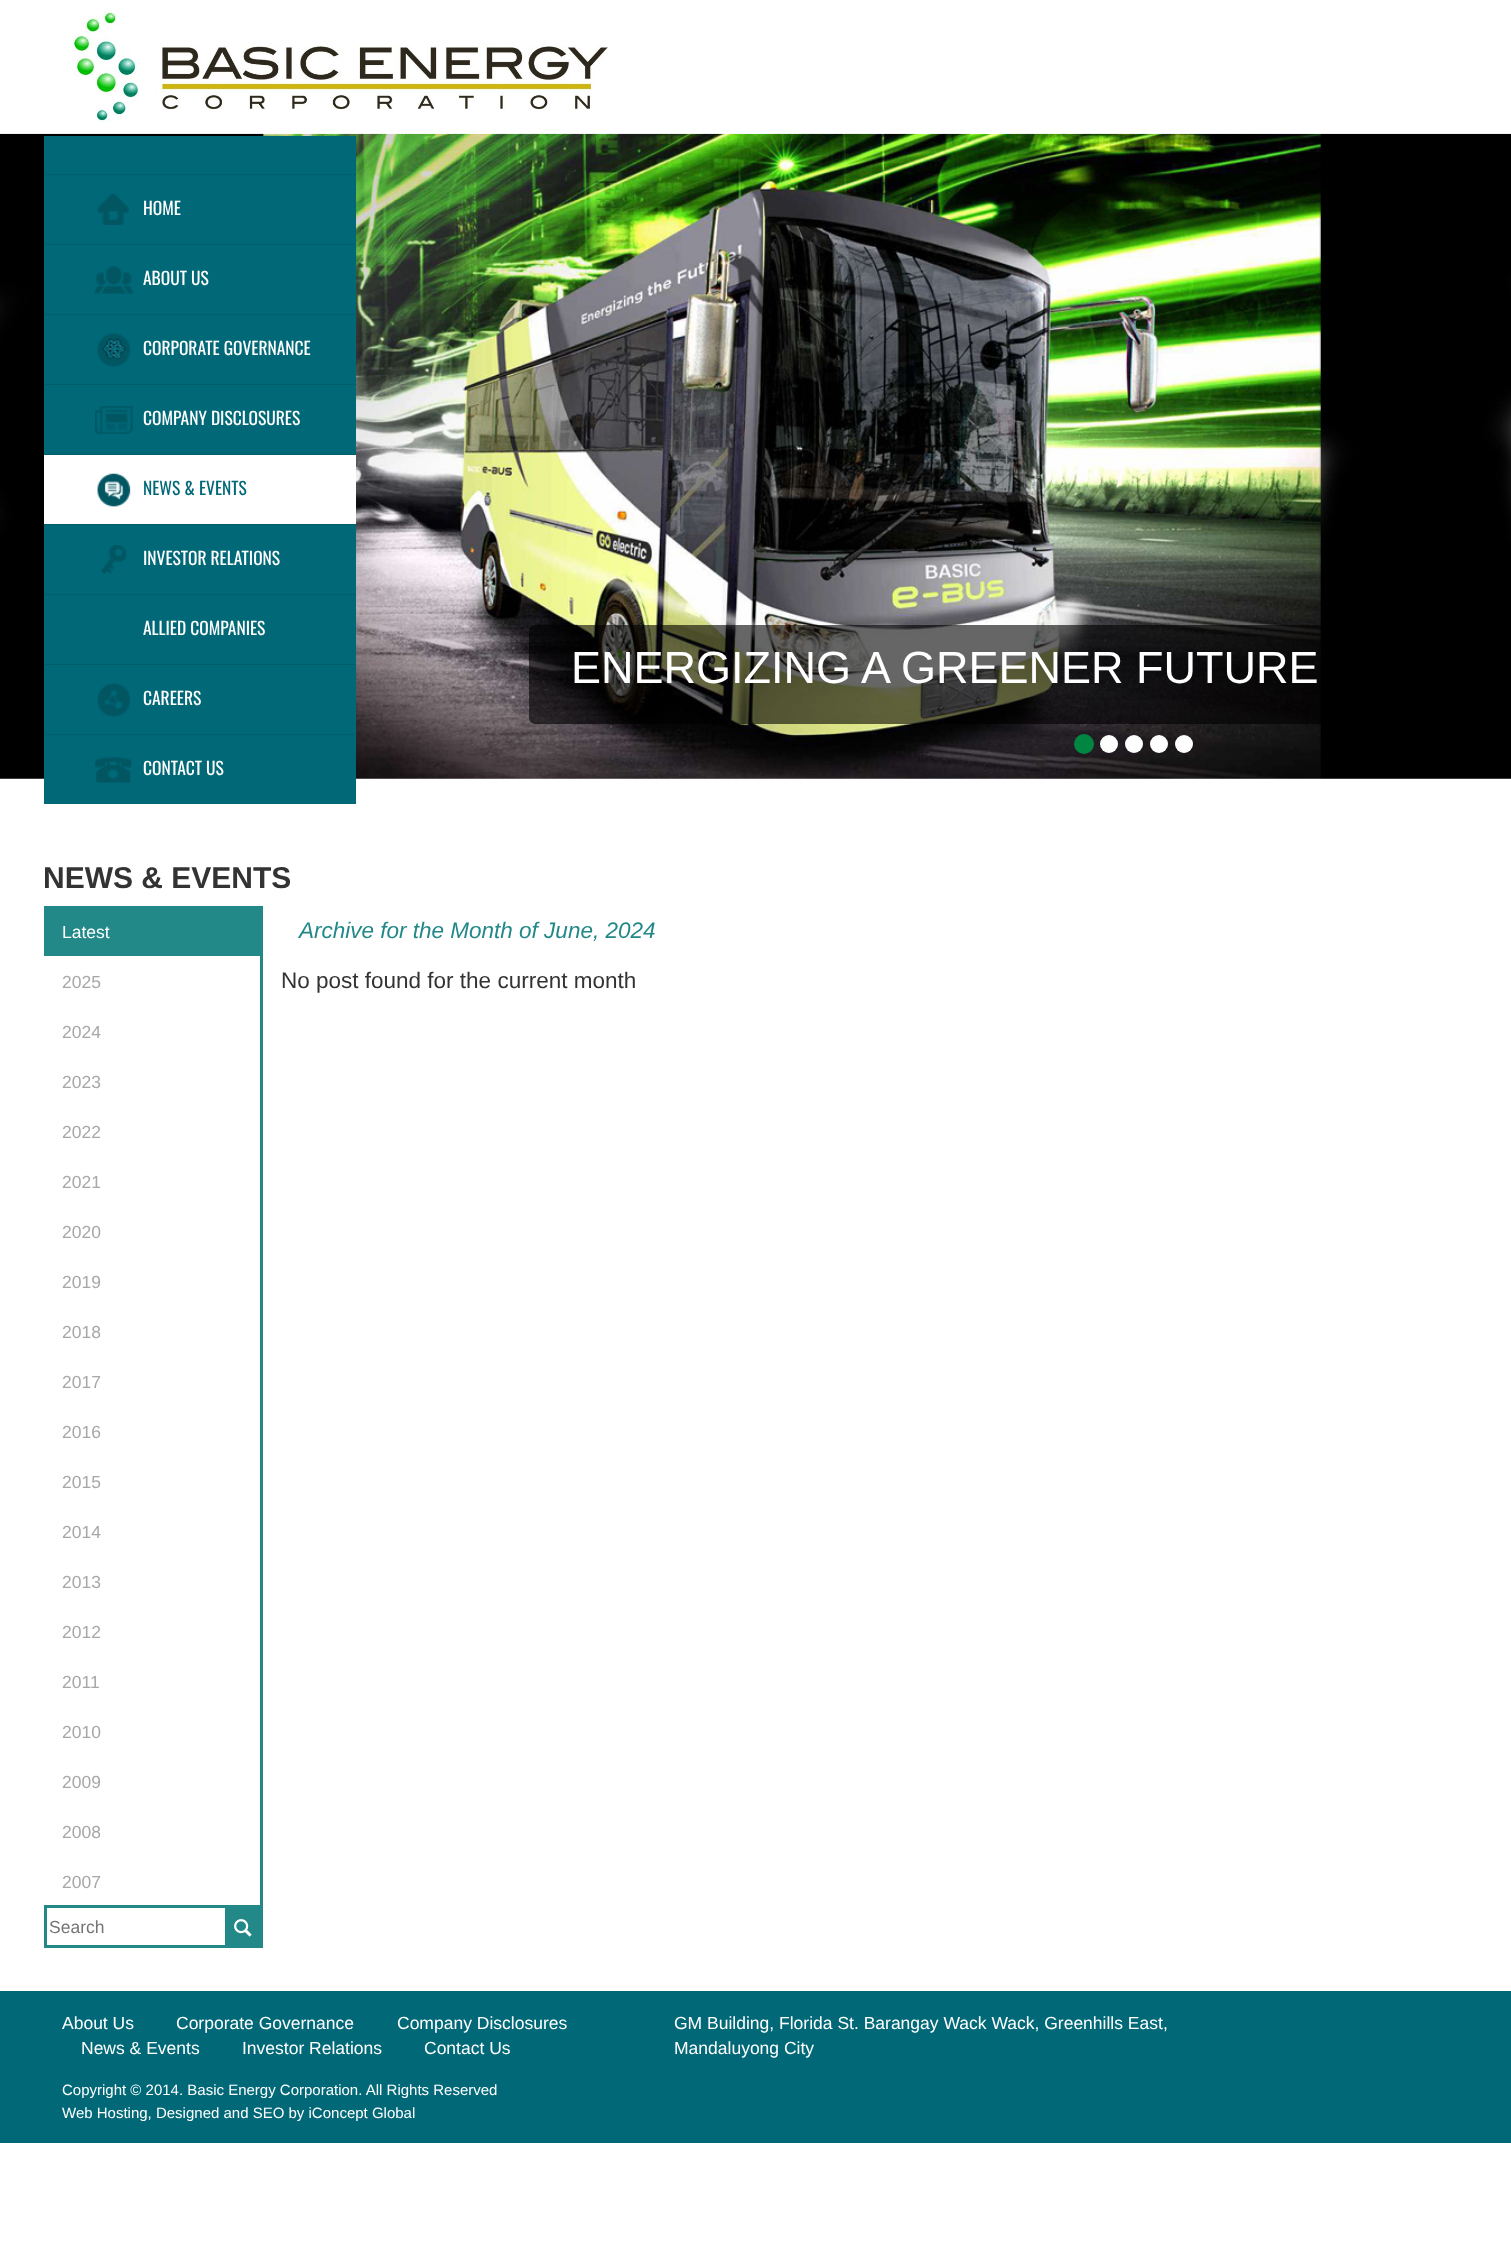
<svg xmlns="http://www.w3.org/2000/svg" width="1511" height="2249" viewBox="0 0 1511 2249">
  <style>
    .t1 { font: 17.5px Oswald; fill: #fff; }
    .t2 { font: 17.5px Oswald; fill: #006877; }
    .t3 { font: 45px Liberation Sans; fill: #fff; }
    .t4 { font: bold 30px Liberation Sans; fill: #333; }
    .t5 { font: 17.5px Liberation Sans; fill: #fff; }
    .t6 { font: 17.5px Liberation Sans; fill: #a7a7a7; }
    .t7 { font: 17.5px Liberation Sans; fill: #757575; }
    .t8 { font: italic 22.5px Liberation Sans; fill: #288; }
    .t9 { font: 22.5px Liberation Sans; fill: #333; }
    .t10 { font: 15px Liberation Sans; fill: #fff; }
  </style>
  <rect width="100%" height="100%" fill="#fff"/>
  <image x="71" y="8" width="537" height="115" href="images/1.png"/>
  <image x="0" y="133" width="1511" height="646" href="images/10.png"/>
  <rect x="44" y="136" width="312" height="668" fill="#006877"/>
  <image x="97" y="193" width="32" height="32" href="images/2.png"/>
  <rect x="44" y="174" width="312" height="1" fill="#015e6b"/>
  <rect x="44" y="244" width="312" height="1" fill="#015e6b"/>
  <text x="143" y="215" class="t1">HOME</text>
  <image x="94" y="266" width="40" height="28" href="images/3.png"/>
  <rect x="44" y="314" width="312" height="1" fill="#015e6b"/>
  <text x="143" y="285" class="t1">ABOUT US</text>
  <image x="97" y="333" width="33" height="34" href="images/4.png"/>
  <rect x="44" y="384" width="312" height="1" fill="#015e6b"/>
  <text x="143" y="355" class="t1">CORPORATE GOVERNANCE</text>
  <image x="95" y="406" width="38" height="28" href="images/5.png"/>
  <rect x="44" y="454" width="312" height="1" fill="#015e6b"/>
  <text x="143" y="425" class="t1">COMPANY DISCLOSURES</text>
  <rect x="44" y="455" width="312" height="69" fill="#fff"/>
  <image x="97" y="473" width="34" height="34" href="images/6.png"/>
  <rect x="44" y="524" width="312" height="1" fill="#015e6b"/>
  <text x="143" y="495" class="t2">NEWS &amp; EVENTS</text>
  <image x="101" y="545" width="26" height="29" href="images/7.png"/>
  <rect x="44" y="594" width="312" height="1" fill="#015e6b"/>
  <text x="143" y="565" class="t1">INVESTOR RELATIONS</text>
  <rect x="44" y="664" width="312" height="1" fill="#015e6b"/>
  <text x="143" y="635" class="t1">ALLIED COMPANIES</text>
  <image x="97" y="683" width="33" height="34" href="images/8.png"/>
  <rect x="44" y="734" width="312" height="1" fill="#015e6b"/>
  <text x="143" y="705" class="t1">CAREERS</text>
  <image x="95" y="757" width="37" height="26" href="images/9.png"/>
  <text x="143" y="775" class="t1">CONTACT US</text>
  <rect x="529" y="625" width="831" height="99" rx="6" fill="#00000099"/>
  <text x="571" y="683" class="t3">ENERGIZING A GREENER FUTURE</text>
  <circle cx="1084" cy="744" r="10" fill="#008641"/>
  <circle cx="1109" cy="744" r="9" fill="#fff"/>
  <circle cx="1134" cy="744" r="9" fill="#fff"/>
  <circle cx="1159" cy="744" r="9" fill="#fff"/>
  <circle cx="1184" cy="744" r="9" fill="#fff"/>
  <text x="43" y="888" class="t4">NEWS &amp; EVENTS</text>
  <rect x="260" y="906" width="3" height="1000" fill="#288"/>
  <rect x="44" y="906" width="216" height="50" fill="#288"/>
  <text x="62" y="938" class="t5">Latest</text>
  <text x="62" y="988" class="t6">2025</text>
  <text x="62" y="1038" class="t6">2024</text>
  <text x="62" y="1088" class="t6">2023</text>
  <text x="62" y="1138" class="t6">2022</text>
  <text x="62" y="1188" class="t6">2021</text>
  <text x="62" y="1238" class="t6">2020</text>
  <text x="62" y="1288" class="t6">2019</text>
  <text x="62" y="1338" class="t6">2018</text>
  <text x="62" y="1388" class="t6">2017</text>
  <text x="62" y="1438" class="t6">2016</text>
  <text x="62" y="1488" class="t6">2015</text>
  <text x="62" y="1538" class="t6">2014</text>
  <text x="62" y="1588" class="t6">2013</text>
  <text x="62" y="1638" class="t6">2012</text>
  <text x="62" y="1688" class="t6">2011</text>
  <text x="62" y="1738" class="t6">2010</text>
  <text x="62" y="1788" class="t6">2009</text>
  <text x="62" y="1838" class="t6">2008</text>
  <text x="62" y="1888" class="t6">2007</text>
  <rect x="45.5" y="1906.5" width="216" height="40" fill="none" stroke="#288" stroke-width="3"/>
  <text x="49" y="1933" class="t7">Search</text>
  <rect x="225" y="1908" width="35" height="37" fill="#288"/>
  <image x="234" y="1919" width="18" height="18" href="images/11.png"/>
  <text x="299" y="938" class="t8">Archive for the Month of June, 2024</text>
  <text x="281" y="988" class="t9">No post found for the current month</text>
  <rect x="0" y="1991" width="1511" height="152" fill="#006877"/>
  <text x="62" y="2029" class="t5">About Us</text>
  <text x="176" y="2029" class="t5">Corporate Governance</text>
  <text x="397" y="2029" class="t5">Company Disclosures</text>
  <text x="81" y="2054" class="t5">News &amp; Events</text>
  <text x="242" y="2054" class="t5">Investor Relations</text>
  <text x="424" y="2054" class="t5">Contact Us</text>
  <text x="62" y="2095" class="t10">Copyright © 2014. Basic Energy Corporation. All Rights Reserved</text>
  <text x="62" y="2118" class="t10">Web Hosting, Designed and SEO by iConcept Global</text>
  <text x="674" y="2029" class="t5">GM Building, Florida St. Barangay Wack Wack, Greenhills East,</text>
  <text x="674" y="2054" class="t5">Mandaluyong City</text>
</svg>
